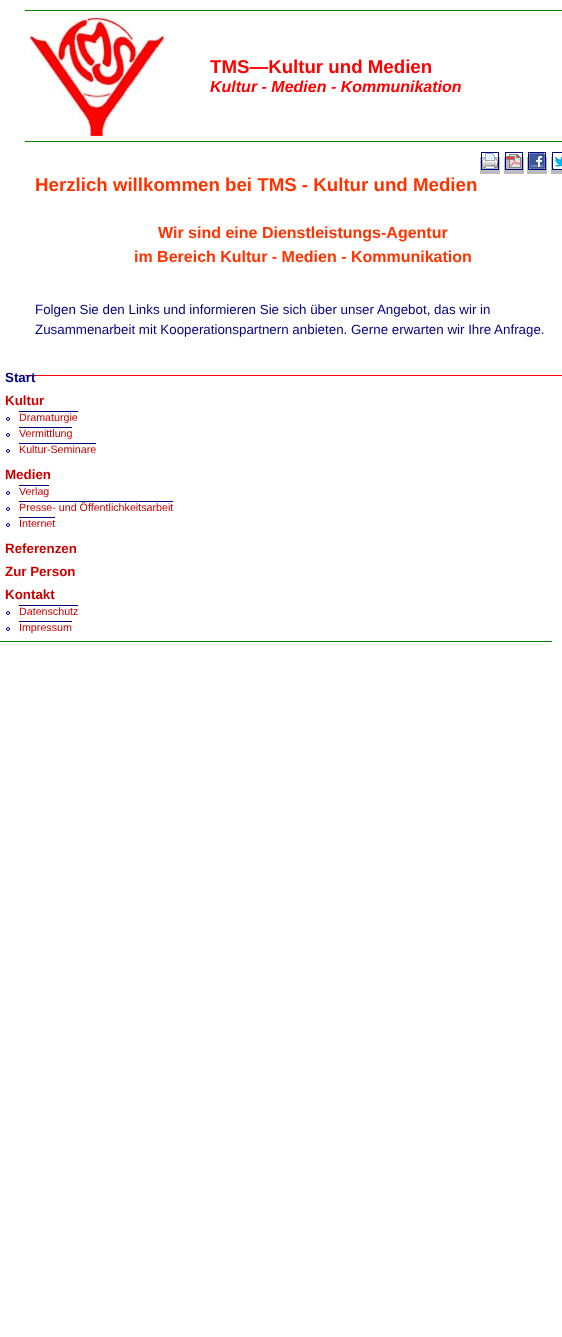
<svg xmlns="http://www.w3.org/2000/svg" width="562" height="1337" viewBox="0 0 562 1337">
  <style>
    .t1 { font: bold 18.7px Liberation Sans; fill: #f00; }
    .t2 { font: italic bold 16px Liberation Sans; fill: #f00; }
    .t3 { font: bold 18.7px Liberation Sans; fill: #f30; }
    .t4 { font: bold 16px Liberation Sans; fill: #f30; }
    .t5 { font: 13.35px Liberation Sans; fill: #000080; }
    .t6 { font: bold 13.35px Liberation Sans; fill: #000080; }
    .t7 { font: bold 13.35px Liberation Sans; fill: #c00; }
    .t8 { font: 10.7px Liberation Sans; fill: #c00; }
  </style>
  <rect width="100%" height="100%" fill="#fff"/>
  <rect x="25" y="10" width="537" height="1" fill="#008000"/>
  <rect x="25" y="141" width="537" height="1" fill="#008000"/>
  <image x="30" y="16" width="134" height="120" href="images/1.png"/>
  <text x="210" y="73" class="t1">TMS—Kultur und Medien</text>
  <text x="210" y="92" class="t2">Kultur - Medien - Kommunikation</text>
  <rect x="25" y="375" width="537" height="1" fill="#f00"/>
  <rect x="480" y="157" width="20" height="17" fill="#bbb"/>
  <rect x="481.5" y="152.5" width="17" height="17" fill="none" stroke="#000080"/>
  <rect x="504" y="157" width="20" height="17" fill="#bbb"/>
  <rect x="505.5" y="152.5" width="17" height="17" fill="none" stroke="#000080"/>
  <rect x="527" y="157" width="20" height="17" fill="#bbb"/>
  <rect x="528.5" y="152.5" width="17" height="17" fill="none" stroke="#000080"/>
  <rect x="551" y="157" width="11" height="17" fill="#bbb"/>
  <rect x="552.5" y="152.5" width="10" height="17" fill="none" stroke="#000080"/>
  <image x="482" y="153" width="16" height="16" href="images/2.png"/>
  <image x="506" y="154" width="15" height="14" href="images/3.png"/>
  <image x="529" y="153" width="16" height="16" href="images/4.png"/>
  <image x="553" y="157" width="9" height="12" href="images/5.png"/>
  <text x="35" y="191" class="t3">Herzlich willkommen bei TMS - Kultur und Medien</text>
  <text x="158" y="238" class="t4">Wir sind eine Dienstleistungs-Agentur</text>
  <text x="134" y="262" class="t4">im Bereich Kultur - Medien - Kommunikation</text>
  <text x="35" y="314" class="t5">Folgen Sie den Links und informieren Sie sich über unser Angebot, das wir in</text>
  <text x="35" y="334" class="t5">Zusammenarbeit mit Kooperationspartnern anbieten. Gerne erwarten wir Ihre Anfrage.</text>
  <rect x="0" y="641" width="552" height="1" fill="#008000"/>
  <text x="5" y="382" class="t6">Start</text>
  <text x="5" y="405" class="t7">Kultur</text>
  <circle cx="8" cy="419" r="1.5" fill="none" stroke="#000080"/>
  <text x="19" y="421" class="t8">Dramaturgie</text>
  <rect x="19" y="411" width="59" height="1" fill="#000080"/>
  <circle cx="8" cy="435" r="1.5" fill="none" stroke="#000080"/>
  <text x="19" y="437" class="t8">Vermittlung</text>
  <rect x="19" y="427" width="53" height="1" fill="#000080"/>
  <circle cx="8" cy="451" r="1.5" fill="none" stroke="#000080"/>
  <text x="19" y="453" class="t8">Kultur-Seminare</text>
  <rect x="19" y="443" width="77" height="1" fill="#000080"/>
  <text x="5" y="479" class="t7">Medien</text>
  <circle cx="8" cy="493" r="1.5" fill="none" stroke="#000080"/>
  <text x="19" y="495" class="t8">Verlag</text>
  <rect x="19" y="485" width="30" height="1" fill="#000080"/>
  <circle cx="8" cy="509" r="1.5" fill="none" stroke="#000080"/>
  <text x="19" y="511" class="t8">Presse- und Öffentlichkeitsarbeit</text>
  <rect x="19" y="501" width="154" height="1" fill="#000080"/>
  <circle cx="8" cy="525" r="1.5" fill="none" stroke="#000080"/>
  <text x="19" y="527" class="t8">Internet</text>
  <rect x="19" y="517" width="36" height="1" fill="#000080"/>
  <text x="5" y="553" class="t7">Referenzen</text>
  <text x="5" y="576" class="t7">Zur Person</text>
  <text x="5" y="599" class="t7">Kontakt</text>
  <circle cx="8" cy="613" r="1.5" fill="none" stroke="#000080"/>
  <text x="19" y="615" class="t8">Datenschutz</text>
  <rect x="19" y="605" width="59" height="1" fill="#000080"/>
  <circle cx="8" cy="629" r="1.5" fill="none" stroke="#000080"/>
  <text x="19" y="631" class="t8">Impressum</text>
  <rect x="19" y="621" width="53" height="1" fill="#000080"/>
</svg>
